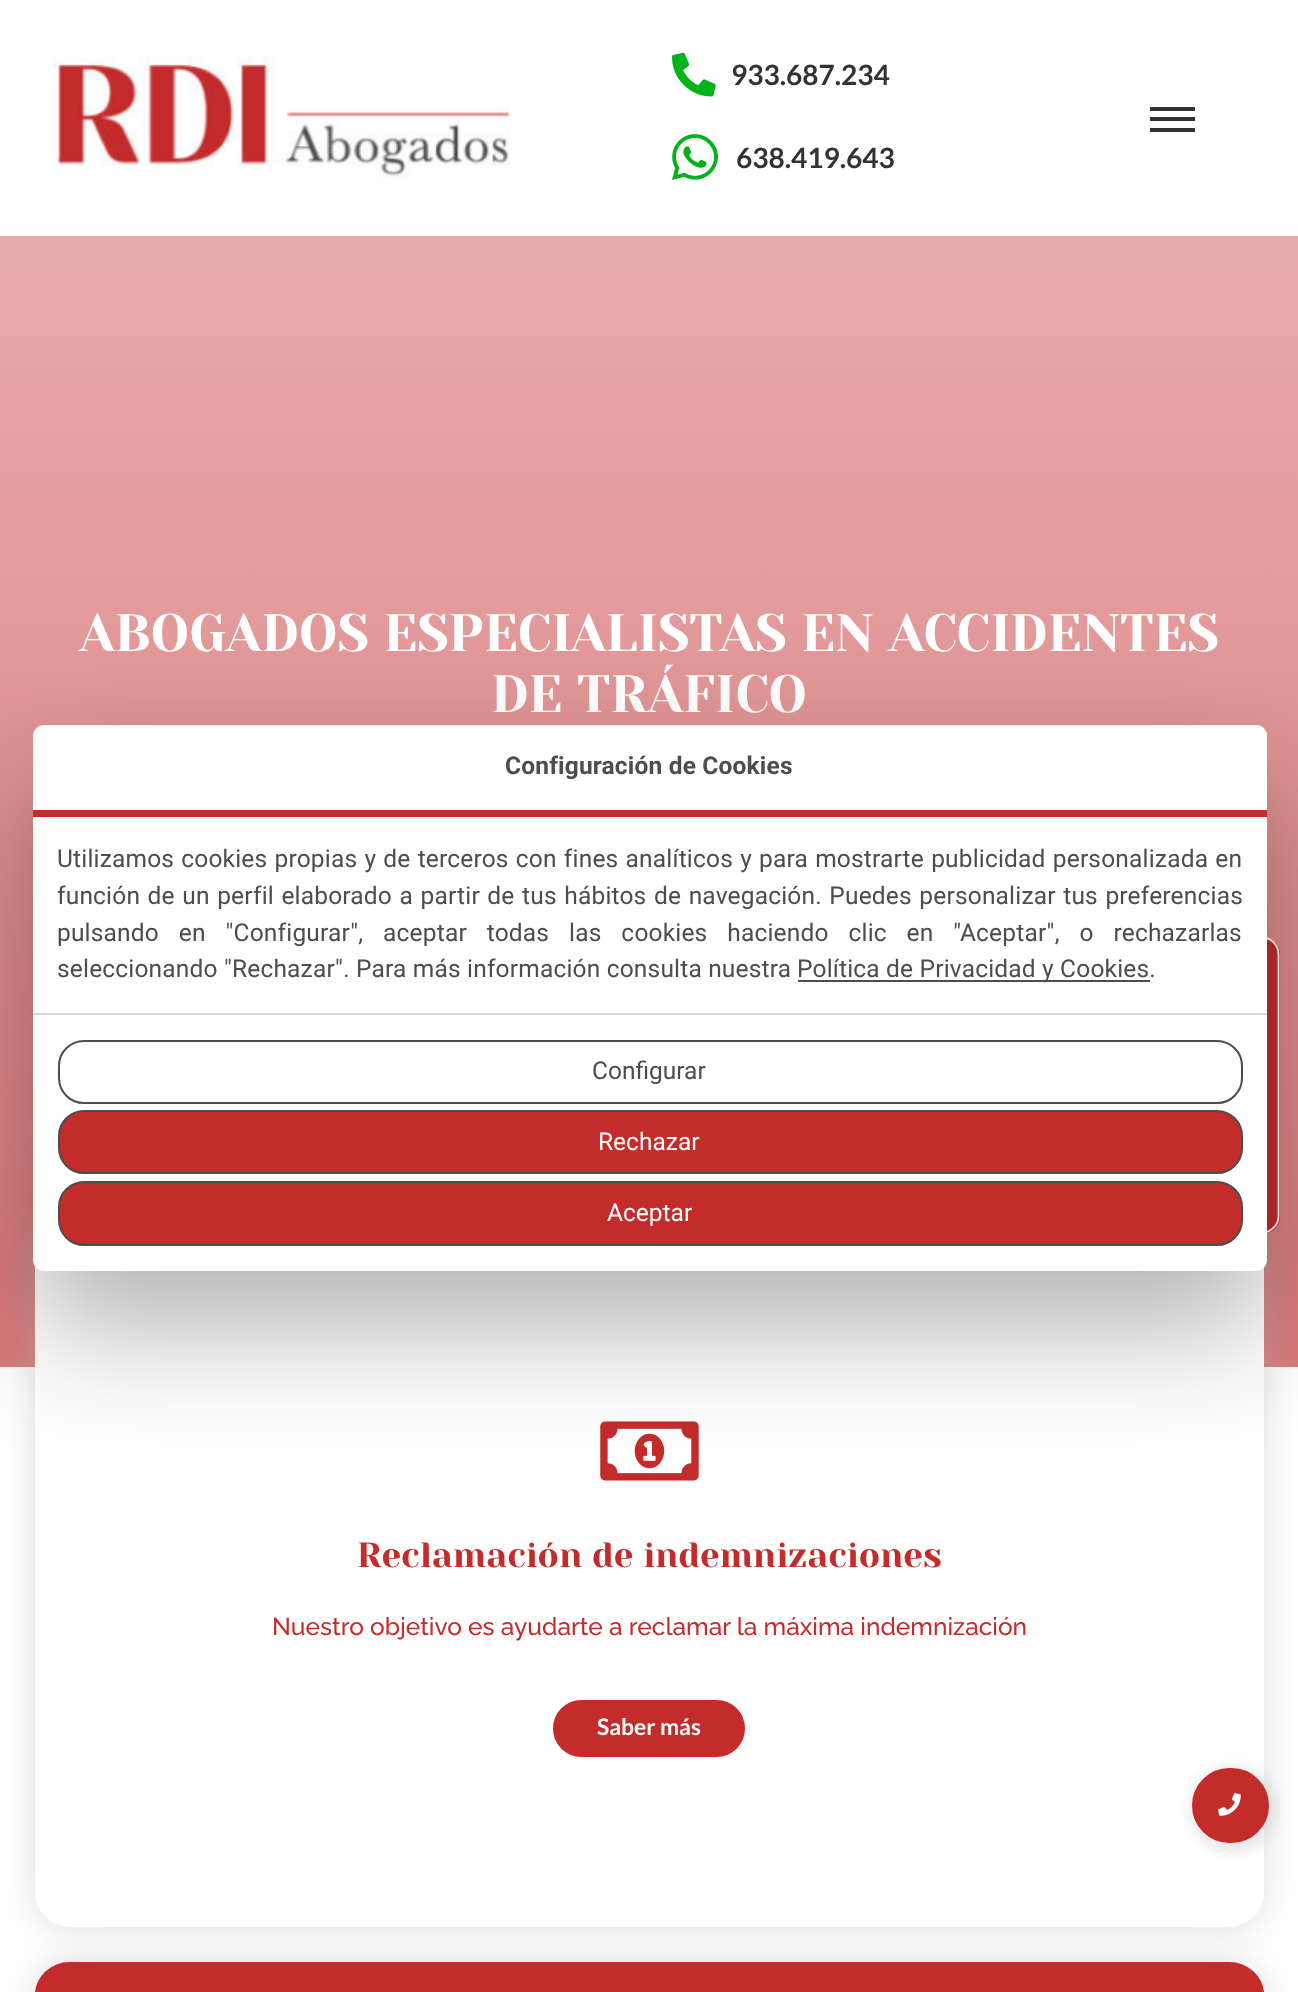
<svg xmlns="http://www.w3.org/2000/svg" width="1298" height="1992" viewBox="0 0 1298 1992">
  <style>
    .t1 { font: bold 28px Lato; fill: #333; }
    .t2 { font: 52.5px Yeseva One; fill: #fff; }
    .t3 { font: 35px Yeseva One; fill: #c42c2c; }
    .t4 { font: 500 24.5px Raleway; fill: #c42c2c; }
    .t5 { font: bold 22.75px Lato; fill: #fff; }
    .t6 { font: bold 24.5px Roboto; letter-spacing: 0.18px; fill: #4d4d4d; }
    .t7 { font: 24.5px Roboto; letter-spacing: 0.18px; fill: #4d4d4d; }
    .t8 { font: 24.5px Roboto; fill: #4d4d4d; }
    .t9 { font: 24.5px Roboto; fill: #fff; }
  </style>
  <defs>
    <linearGradient id="g1" gradientUnits="userSpaceOnUse" x1="649" y1="122" x2="649" y2="1367"><stop offset="0" stop-color="#e9b0b0"/><stop offset="1" stop-color="#da7979"/></linearGradient>
  </defs>
  <rect width="100%" height="100%" fill="#fff"/>
  <image x="52" y="56" width="459" height="123" href="images/1.png"/>
  <image x="672" y="52" width="44" height="45" href="images/2.png"/>
  <text x="731" y="85" class="t1">933.687.234</text>
  <image x="672" y="134" width="46" height="46" href="images/3.png"/>
  <text x="736" y="168" class="t1">638.419.643</text>
  <rect x="1150" y="107" width="45" height="4" fill="#333"/>
  <rect x="1150" y="117" width="45" height="4" fill="#333"/>
  <rect x="1150" y="128" width="45" height="4" fill="#333"/>
  <rect x="0" y="236" width="1298" height="1131" fill="url(#g1)"/>
  <text x="79" y="651" class="t2">ABOGADOS ESPECIALISTAS EN ACCIDENTES</text>
  <text x="491" y="712" class="t2">DE TRÁFICO</text>
  <rect x="35" y="1227" width="1229" height="700" rx="35" fill="#bebebe80" filter="blur(17.5px)"/>
  <image x="35" y="1892" width="1229" height="35" href="images/4.png"/>
  <rect x="35" y="1227" width="1229" height="700" rx="35" fill="#fff"/>
  <image x="600" y="1421" width="99" height="60" href="images/5.png"/>
  <text x="357" y="1567" class="t3">Reclamación de indemnizaciones</text>
  <text x="272" y="1635" class="t4">Nuestro objetivo es ayudarte a reclamar la máxima indemnización</text>
  <rect x="552" y="1699" width="194" height="59" rx="29.5" fill="#c42c2c" stroke="#fff" stroke-width="2"/>
  <text x="597" y="1735" class="t5">Saber más</text>
  <rect x="35" y="1962" width="1229" height="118" rx="35" fill="#bebebe80" filter="blur(17.5px)"/>
  <image x="35" y="1962" width="1228" height="30" href="images/6.png"/>
  <rect x="35" y="1962" width="1229" height="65" rx="35" fill="#c42c2c"/>
  <path d="M1160 1216V954C1160 945 1168 937 1177 937H1262C1272 937 1280 945 1280 954V1216C1280 1226 1272 1234 1262 1234H1177C1168 1234 1160 1226 1160 1216Z" fill="#c42c2c"/>
  <path d="M1161 1216V954.5C1161 945 1168.5 937.5 1177.5 937.5H1262C1271 937.5 1278.5 945 1278.5 954.5V1216C1278.5 1225 1271 1232.5 1262 1232.5H1177.5C1168.5 1232.5 1161 1225 1161 1216Z" fill="none" stroke="#fff" stroke-width="1.8"/>
  <rect x="33" y="781" width="1234" height="546" rx="11" fill="#0000004d" filter="blur(59.5px)"/>
  <rect x="33" y="725" width="1234" height="546" rx="11" fill="#fff"/>
  <rect x="33" y="810" width="1234" height="7" fill="#c42c2b"/>
  <text x="505" y="774" class="t6">Configuración de Cookies</text>
  <rect x="33" y="1013" width="1234" height="2" fill="#d8d8d8"/>
  <text x="57" y="867" word-spacing="0.9" class="t7">Utilizamos cookies propias y de terceros con fines analíticos y para mostrarte publicidad personalizada en</text>
  <text x="57" y="904" word-spacing="1.25" class="t7">función de un perfil elaborado a partir de tus hábitos de navegación. Puedes personalizar tus preferencias</text>
  <text x="57" y="941" word-spacing="13.6" class="t7">pulsando en "Configurar", aceptar todas las cookies haciendo clic en "Aceptar", o rechazarlas</text>
  <text x="57" y="977" class="t7">seleccionando "Rechazar". Para más información consulta nuestra</text>
  <rect x="798" y="980" width="352" height="2" fill="#4d4d4d"/>
  <text x="797" y="977" class="t7">Política de Privacidad y Cookies.</text>
  <rect x="59" y="1041" width="1183" height="62" rx="25" fill="none" stroke="#4d4d4d" stroke-width="2"/>
  <text x="592" y="1079" class="t8">Configurar</text>
  <rect x="59" y="1111" width="1183" height="62" rx="25" fill="#c42c2b" stroke="#4d4d4d" stroke-width="2"/>
  <text x="598" y="1150" class="t9">Rechazar</text>
  <rect x="59" y="1182" width="1183" height="63" rx="25" fill="#c42c2b" stroke="#4d4d4d" stroke-width="2"/>
  <text x="607" y="1221" class="t9">Aceptar</text>
  <rect x="1190" y="1766" width="88" height="86" rx="43" fill="#cfcfcf80" filter="blur(6px)"/>
  <rect x="1193" y="1769" width="75" height="73" rx="36.5" fill="#c42c2c" stroke="#c42c2c" stroke-width="2"/>
  <image x="1218" y="1793" width="23" height="23" href="images/7.png"/>
</svg>
